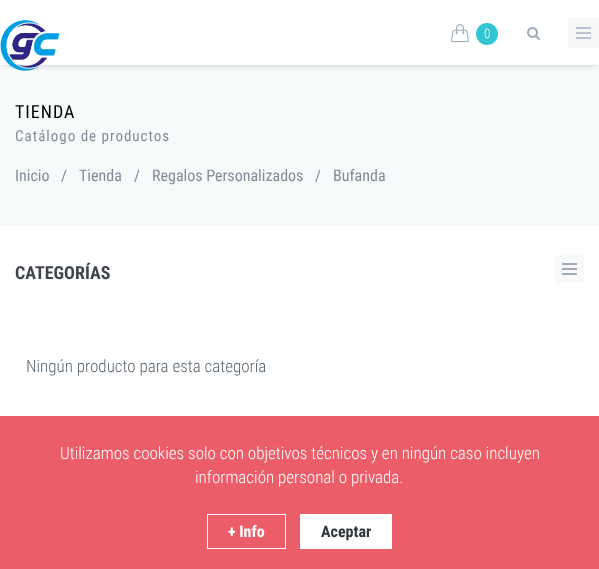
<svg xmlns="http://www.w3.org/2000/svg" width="599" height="569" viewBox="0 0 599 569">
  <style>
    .t1 { font: 300 13px Roboto Condensed; fill: #fff; }
    .t2 { font: 18px Roboto Condensed; letter-spacing: 1px; fill: #000; }
    .t3 { font: 15px Roboto Condensed; letter-spacing: 1px; fill: #7f8c97; }
    .t4 { font: 16px Roboto Condensed; fill: #7f8c97; }
    .t5 { font: bold 18px Roboto Condensed; fill: #3f444a; }
    .t6 { font: 300 17px Roboto Condensed; fill: #5c6873; }
    .t7 { font: 300 17px Roboto Condensed; fill: #fff; }
    .t8 { font: bold 16px Roboto Condensed; fill: #fff; }
    .t9 { font: bold 16px Roboto Condensed; fill: #2f353b; }
  </style>
  <defs>
    <clipPath id="clip1"><rect x="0" y="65" width="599" height="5"/></clipPath>
  </defs>
  <rect width="100%" height="100%" fill="#fff"/>
  <rect x="0" y="66" width="599" height="158" fill="#f7fafb"/>
  <rect x="0" y="65" width="599" height="1" fill="#f4f8f9"/>
  <g clip-path="url(#clip1)">
    <rect x="4" y="7" width="591" height="57" fill="#00000040" filter="blur(4.5px)"/>
  </g>
  <image x="0" y="20" width="60" height="51" href="images/1.png"/>
  <image x="451" y="24" width="18" height="19" href="images/2.png"/>
  <circle cx="487" cy="34" r="11" fill="#32c5d2"/>
  <text x="484" y="38" class="t1">0</text>
  <image x="527" y="27" width="13" height="13" href="images/3.png"/>
  <rect x="568" y="18" width="31" height="30" fill="#f5f6f8"/>
  <rect x="576" y="27" width="15" height="2" fill="#bac3cd"/>
  <rect x="576" y="32" width="15" height="2" fill="#bac3cd"/>
  <rect x="576" y="37" width="15" height="2" fill="#bac3cd"/>
  <rect x="0" y="224" width="599" height="1" fill="#f4f8f9"/>
  <text x="15" y="118" class="t2">TIENDA</text>
  <text x="15" y="141" class="t3">Catálogo de productos</text>
  <text x="15" y="181" class="t4">Inicio</text>
  <text x="61" y="181" class="t4">/</text>
  <text x="79" y="181" class="t4">Tienda</text>
  <text x="134" y="181" class="t4">/</text>
  <text x="152" y="181" class="t4">Regalos Personalizados</text>
  <text x="315" y="181" class="t4">/</text>
  <text x="333" y="181" class="t4">Bufanda</text>
  <text x="15" y="279" class="t5">CATEGORÍAS</text>
  <rect x="555" y="255" width="29" height="28" fill="#f8f9fa"/>
  <rect x="562" y="263" width="15" height="2" fill="#9fadba"/>
  <rect x="562" y="268" width="15" height="2" fill="#9fadba"/>
  <rect x="562" y="273" width="15" height="2" fill="#9fadba"/>
  <text x="26" y="372" class="t6">Ningún producto para esta categoría</text>
  <rect x="0" y="416" width="599" height="153" fill="#eb5d68"/>
  <text x="60" y="459" class="t7">Utilizamos cookies solo con objetivos técnicos y en ningún caso incluyen</text>
  <text x="195" y="483" class="t7">información personal o privada.</text>
  <rect x="207.5" y="514.5" width="78" height="34" fill="none" stroke="#fff"/>
  <text x="228" y="537" class="t8">+ Info</text>
  <rect x="300" y="514" width="92" height="35" fill="#fff"/>
  <text x="321" y="537" class="t9">Aceptar</text>
</svg>
